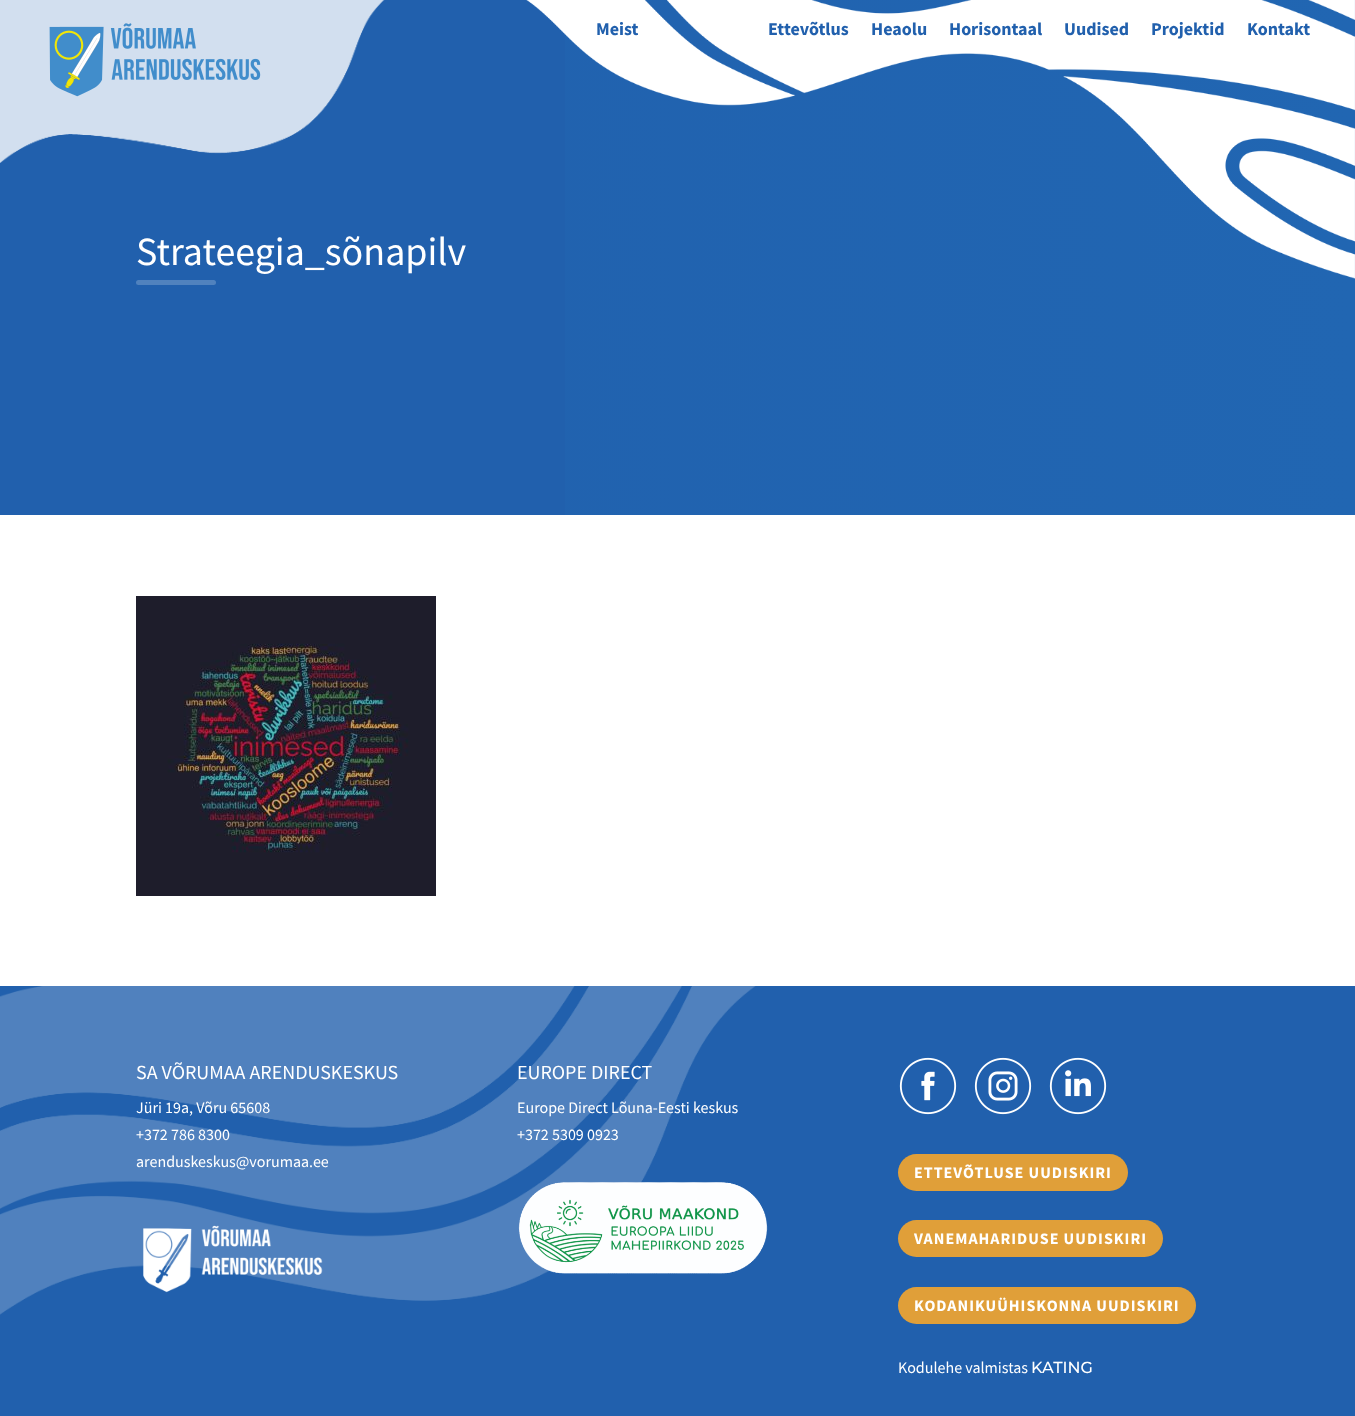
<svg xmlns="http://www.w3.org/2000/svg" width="1355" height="1416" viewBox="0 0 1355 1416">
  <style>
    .t1 { font: bold 18px Source Sans Pro; fill: #2160ad; }
    .t2 { font: 40px Source Sans Pro; fill: #fff; }
    .t3 { font: 20px Source Sans Pro; fill: #fff; }
    .t4 { font: 16px Source Sans Pro; fill: #fff; }
    .t5 { font: bold 16px Source Sans Pro; letter-spacing: 1px; fill: #fff; }
    .t6 { font: 500 16px Montserrat; fill: #fff; }
  </style>
  <defs>
    <linearGradient id="g1" gradientUnits="userSpaceOnUse" x1="0" y1="251" x2="1355" y2="251"><stop offset="0" stop-color="#2160ad"/><stop offset="1" stop-color="#2166b2"/></linearGradient>
  </defs>
  <rect width="100%" height="100%" fill="#2160ad"/>
  <image x="0" y="0" width="385" height="163" href="images/1.png"/>
  <image x="49" y="23" width="212" height="74" href="images/2.png"/>
  <rect x="565" y="0" width="790" height="515" fill="url(#g1)"/>
  <image x="526" y="0" width="829" height="279" href="images/3.png"/>
  <text x="596" y="35" class="t1">Meist</text>
  <text x="768" y="35" class="t1">Ettevõtlus</text>
  <text x="871" y="35" class="t1">Heaolu</text>
  <text x="949" y="35" class="t1">Horisontaal</text>
  <text x="1064" y="35" class="t1">Uudised</text>
  <text x="1151" y="35" class="t1">Projektid</text>
  <text x="1247" y="35" class="t1">Kontakt</text>
  <text x="136" y="265" class="t2">Strateegia_sõnapilv</text>
  <rect x="136" y="280" width="80" height="5" rx="2.5" fill="#5082be"/>
  <rect x="0" y="515" width="1355" height="471" fill="#fff"/>
  <image x="136" y="596" width="300" height="300" href="images/4.png"/>
  <image x="0" y="986" width="756" height="329" href="images/5.png"/>
  <text x="136" y="1079" class="t3">SA VÕRUMAA ARENDUSKESKUS</text>
  <text x="136" y="1113" class="t4">Jüri 19a, Võru 65608</text>
  <text x="136" y="1140" class="t4">+372 786 8300</text>
  <text x="136" y="1167" class="t4">arenduskeskus@vorumaa.ee</text>
  <image x="143" y="1225" width="180" height="68" href="images/6.png"/>
  <text x="517" y="1079" class="t3">EUROPE DIRECT</text>
  <text x="517" y="1113" class="t4">Europe Direct Lõuna-Eesti keskus</text>
  <text x="517" y="1140" class="t4">+372 5309 0923</text>
  <image x="518" y="1182" width="250" height="92" href="images/7.png"/>
  <image x="899" y="1057" width="58" height="58" href="images/8.png"/>
  <image x="974" y="1057" width="58" height="58" href="images/9.png"/>
  <image x="1049" y="1057" width="58" height="58" href="images/10.png"/>
  <rect x="898" y="1154" width="230" height="37" rx="18.5" fill="#e09f39"/>
  <text x="914" y="1178" class="t5">ETTEVÕTLUSE UUDISKIRI</text>
  <rect x="898" y="1220" width="265" height="37" rx="18.5" fill="#e09f39"/>
  <text x="914" y="1244" class="t5">VANEMAHARIDUSE UUDISKIRI</text>
  <rect x="898" y="1287" width="298" height="37" rx="18.5" fill="#e09f39"/>
  <text x="914" y="1311" class="t5">KODANIKUÜHISKONNA UUDISKIRI</text>
  <text x="898" y="1373" class="t4">Kodulehe valmistas</text>
  <text x="1031" y="1373" class="t6">KATING</text>
</svg>
